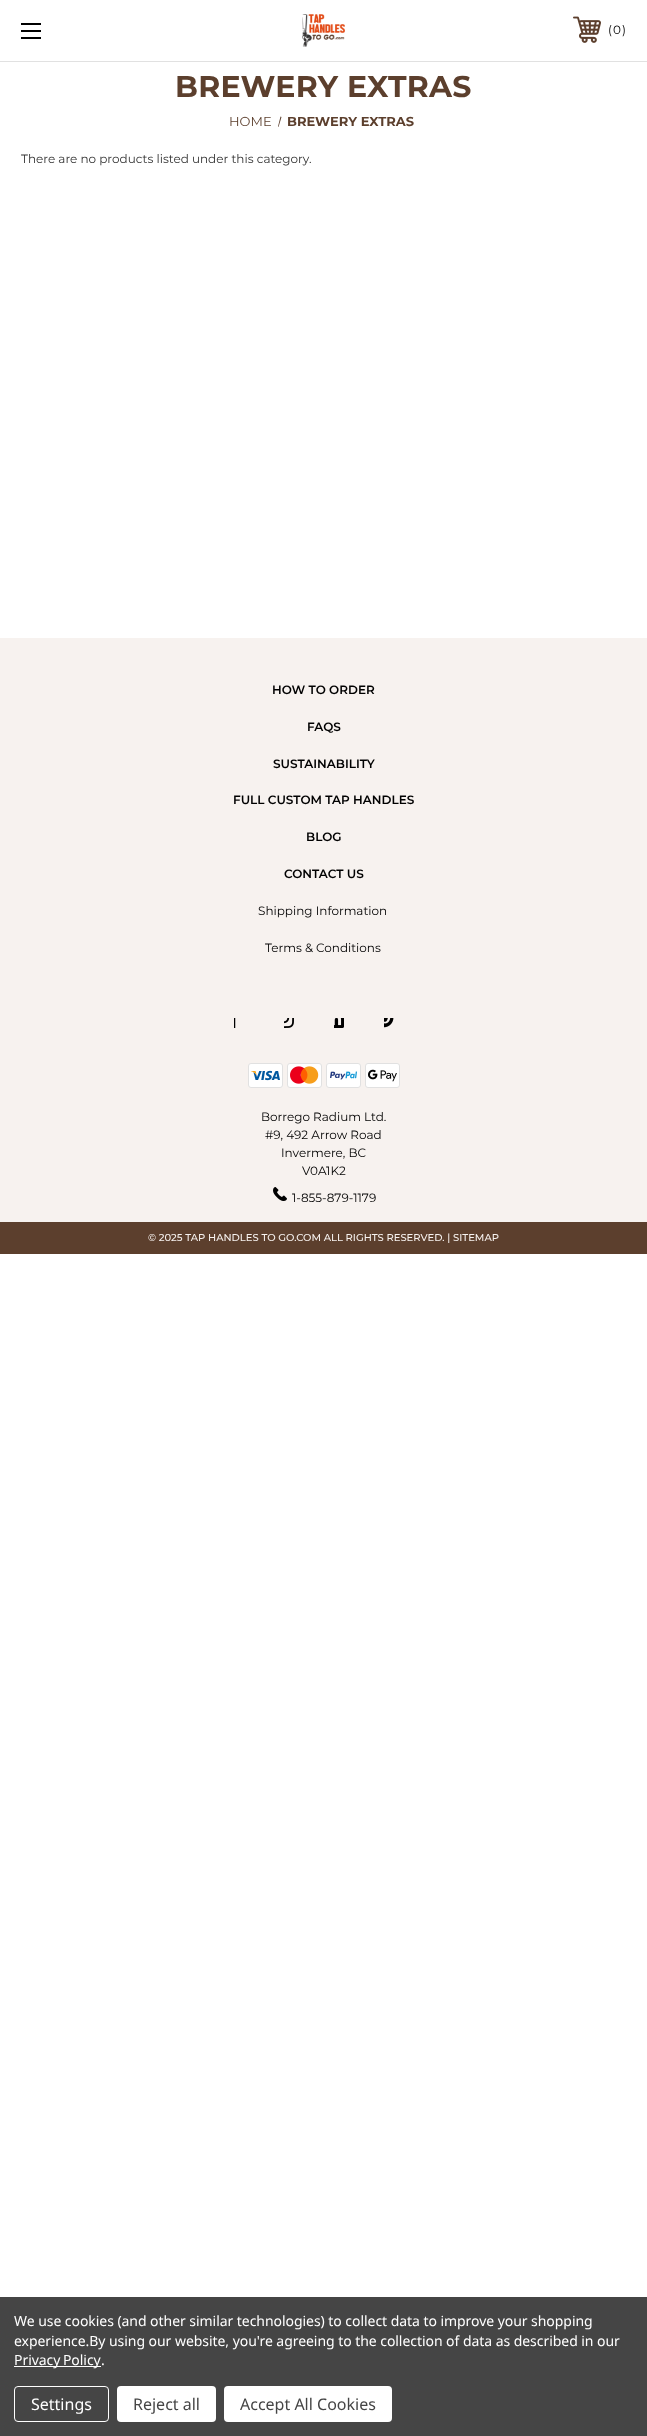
<svg xmlns="http://www.w3.org/2000/svg" width="647" height="2436" viewBox="0 0 647 2436">
  <style>
    .t1 { font: 12px Montserrat; fill: #000; }
    .t2 { font: bold 30px Montserrat; letter-spacing: 0.25px; fill: #5c3f2d; }
    .t3 { font: 13px Montserrat; fill: #5c3f2d; }
    .t4 { font: bold 13px Montserrat; fill: #5c3f2d; }
    .t5 { font: 12px Montserrat; fill: #333; }
    .t6 { font: 600 12px Montserrat; fill: #000; }
    .t7 { font: 500 10px Montserrat; fill: #f7f2ef; }
    .t8 { font: 14px Noto Sans; letter-spacing: -0.05px; fill: #fff; }
    .t9 { font: 16px Noto Sans; fill: #fff; }
    .t10 { font: 16px Noto Sans; fill: #454545; }
  </style>
  <rect width="100%" height="100%" fill="#fff"/>
  <rect x="0" y="61" width="647" height="1" fill="#e1e1e1"/>
  <rect x="21" y="30" width="20" height="2" fill="#000"/>
  <rect x="21" y="23" width="20" height="2" fill="#000"/>
  <rect x="21" y="37" width="20" height="2" fill="#000"/>
  <image x="302" y="14" width="43" height="33" href="images/1.png"/>
  <image x="573" y="16" width="28" height="27" href="images/2.png"/>
  <text x="608" y="34" class="t1">(</text>
  <text x="613" y="34" class="t1">0</text>
  <text x="622" y="34" class="t1">)</text>
  <text x="175" y="97" class="t2">BREWERY EXTRAS</text>
  <text x="229" y="126" class="t3">HOME</text>
  <path d="M280.5 116.5L281.5 117L278.5 127L278 126.5Z" fill="#5c3f2d"/>
  <text x="287" y="126" class="t4">BREWERY EXTRAS</text>
  <text x="21" y="163" class="t5">There are no products listed under this category.</text>
  <rect x="0" y="638" width="647" height="584" fill="#f7f2ef"/>
  <text x="272" y="694" class="t6">HOW TO ORDER</text>
  <text x="307" y="731" class="t6">FAQS</text>
  <text x="273" y="768" class="t6">SUSTAINABILITY</text>
  <text x="233" y="804" class="t6">FULL CUSTOM TAP HANDLES</text>
  <text x="306" y="841" class="t6">BLOG</text>
  <text x="284" y="878" class="t6">CONTACT US</text>
  <text x="258" y="915" class="t1">Shipping Information</text>
  <text x="265" y="952" class="t1">Terms &amp; Conditions</text>
  <image x="234" y="1018" width="2" height="10" href="images/3.png"/>
  <image x="284" y="1018" width="10" height="10" href="images/4.png"/>
  <image x="334" y="1018" width="10" height="10" href="images/5.png"/>
  <image x="384" y="1018" width="10" height="10" href="images/6.png"/>
  <rect x="248.5" y="1063.5" width="34" height="24" rx="2.5" fill="#fff" stroke="#e1e1e1"/>
  <image x="251" y="1070" width="29" height="11" href="images/7.png"/>
  <rect x="287.5" y="1063.5" width="34" height="24" rx="2.5" fill="#fff" stroke="#e1e1e1"/>
  <image x="290" y="1066" width="29" height="18" href="images/8.png"/>
  <rect x="326.5" y="1063.5" width="34" height="24" rx="2.5" fill="#fff" stroke="#e1e1e1"/>
  <image x="330" y="1071" width="27" height="9" href="images/9.png"/>
  <rect x="365.5" y="1063.5" width="34" height="24" rx="2.5" fill="#fff" stroke="#e1e1e1"/>
  <image x="368" y="1069" width="29" height="13" href="images/10.png"/>
  <text x="261" y="1121" class="t1">Borrego Radium Ltd.</text>
  <text x="265" y="1139" class="t1">#9, 492 Arrow Road</text>
  <text x="281" y="1157" class="t1">Invermere, BC</text>
  <text x="302" y="1175" class="t1">V0A1K2</text>
  <image x="273" y="1187" width="14" height="14" href="images/11.png"/>
  <text x="292" y="1202" class="t1">1-855-879-1179</text>
  <rect x="0" y="1222" width="647" height="32" fill="#5c3f2d"/>
  <text x="148" y="1241" class="t7">© 2025 TAP HANDLES TO GO.COM ALL RIGHTS RESERVED. | SITEMAP</text>
  <rect x="0" y="2297" width="647" height="139" fill="#454545"/>
  <text x="14" y="2326" class="t8">We use cookies (and other similar technologies) to collect data to improve your shopping</text>
  <text x="14" y="2346" class="t8">experience.By using our website, you're agreeing to the collection of data as described in our</text>
  <rect x="14" y="2366" width="87" height="1" fill="#fff"/>
  <text x="14" y="2365" word-spacing="-1" class="t8">Privacy Policy</text>
  <text x="101" y="2365" class="t8">.</text>
  <rect x="14.5" y="2386.5" width="94" height="35" rx="3.5" fill="none" stroke="#fff"/>
  <text x="31" y="2410" class="t9">Settings</text>
  <rect x="117" y="2386" width="99" height="36" rx="4" fill="#fff"/>
  <text x="133" y="2410" class="t10">Reject all</text>
  <rect x="224" y="2386" width="168" height="36" rx="4" fill="#fff"/>
  <text x="240" y="2410" class="t10">Accept All Cookies</text>
</svg>
